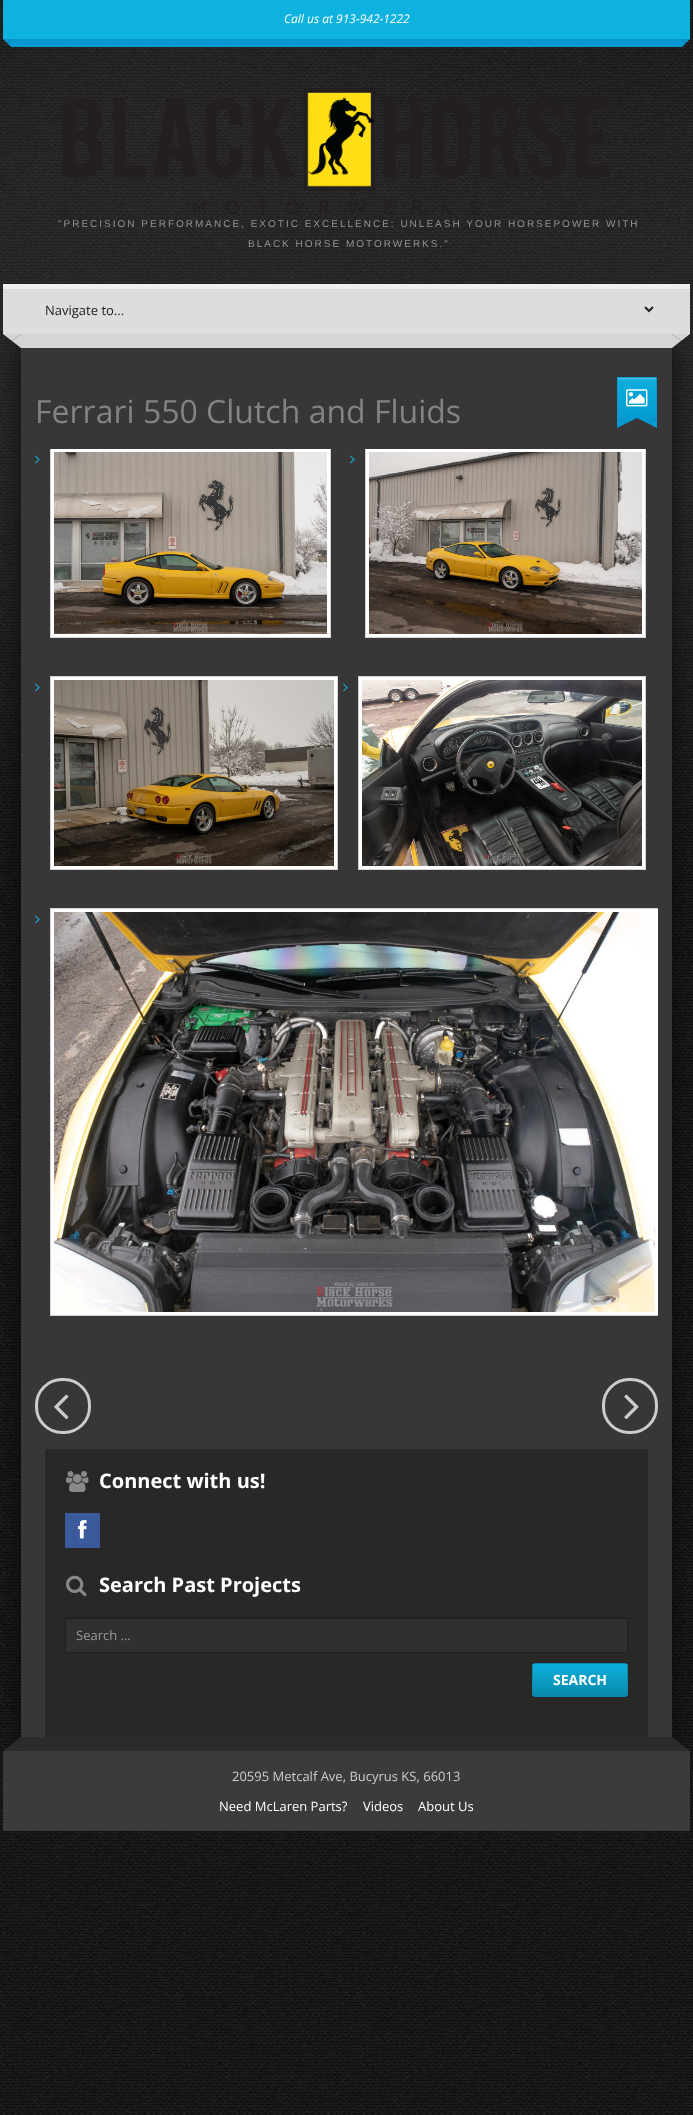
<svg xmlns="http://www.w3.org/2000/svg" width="693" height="2115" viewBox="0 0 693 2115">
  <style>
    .t1 { font: italic 12px Open Sans; fill: #fff; }
    .t2 { font: 10px Liberation Sans; letter-spacing: 2px; fill: #949292; }
    .t3 { font: 13px Open Sans; fill: #222; }
    .t4 { font: 32px Open Sans; fill: #858382; }
    .t5 { font: bold 20px Open Sans; fill: #fff; }
    .t6 { font: 13px Open Sans; fill: #999; }
    .t7 { font: bold 14px Open Sans; fill: #fff; }
    .t8 { font: 13px Open Sans; fill: #ccc; }
    .t9 { font: 13px Open Sans; fill: #fff; }
  </style>
  <defs>
    <linearGradient id="g1" gradientUnits="userSpaceOnUse" x1="637" y1="378" x2="637" y2="418"><stop offset="0" stop-color="#0caedc"/><stop offset="1" stop-color="#059bd2"/></linearGradient>
    <clipPath id="clip1"><rect x="35" y="449" width="623" height="899"/></clipPath>
    <clipPath id="clip2"><rect x="532" y="1663" width="96" height="34" rx="3"/></clipPath>
    <linearGradient id="g2" gradientUnits="userSpaceOnUse" x1="580" y1="1664" x2="580" y2="1696"><stop offset="0" stop-color="#0cafdc"/><stop offset="1" stop-color="#0989ac"/></linearGradient>
  </defs>
  <rect width="100%" height="100%" fill="#fff"/>
  <image x="0" y="0" width="693" height="2115" href="images/1.png"/>
  <image x="0" y="0" width="693" height="836" href="images/2.png"/>
  <rect x="3" y="0" width="687" height="39" fill="#0db2de"/>
  <text x="284" y="23" class="t1">Call us at 913-942-1222</text>
  <rect x="11" y="39" width="671" height="8" fill="#0497d0"/>
  <path d="M3 39H11L7 43Z" fill="#0497d0"/>
  <path d="M11 39V47L7 43Z" fill="#0497d0"/>
  <path d="M682 39H690L686 43Z" fill="#0497d0"/>
  <path d="M682 47V39L686 43Z" fill="#0497d0"/>
  <image x="62" y="89" width="548" height="125" href="images/3.png"/>
  <text x="58" y="227" class="t2">"PRECISION PERFORMANCE, EXOTIC EXCELLENCE: UNLEASH YOUR HORSEPOWER WITH</text>
  <text x="248" y="247" class="t2">BLACK HORSE MOTORWERKS."</text>
  <rect x="21" y="348" width="651" height="1389" fill="#00000099" filter="blur(12.5px)"/>
  <rect x="3" y="289" width="687" height="45" fill="#ddd"/>
  <rect x="3" y="284" width="687" height="5" fill="#f1efee"/>
  <path d="M645 307L649 311L653 307" fill="none" stroke="#222" stroke-width="2"/>
  <text x="45" y="315" class="t3">Navigate to...</text>
  <rect x="21" y="334" width="651" height="14" fill="#d6d5d5"/>
  <path d="M3 334H21L12 341Z" fill="#d6d5d5"/>
  <path d="M21 334V348L12 341Z" fill="#d6d5d5"/>
  <path d="M672 334H690L681 341Z" fill="#d6d5d5"/>
  <path d="M672 348V334L681 341Z" fill="#d6d5d5"/>
  <rect x="21" y="348" width="651" height="1389" fill="#383636"/>
  <text x="35" y="423" class="t4">Ferrari 550 Clutch and Fluids</text>
  <rect x="618" y="379" width="38" height="39" fill="url(#g1)"/>
  <rect x="618" y="378" width="38" height="1" fill="#55c6e7"/>
  <rect x="617" y="377" width="40" height="1" fill="#059bd2"/>
  <rect x="656" y="377" width="1" height="41" fill="#059bd2"/>
  <rect x="617" y="377" width="1" height="41" fill="#059bd2"/>
  <image x="626" y="389" width="22" height="18" href="images/4.png"/>
  <path d="M617 418H637L627 423Z" fill="#059bd2"/>
  <path d="M617 428V418L627 423ZM637 418H657L647 423Z" fill="#059bd2"/>
  <path d="M657 418V428L647 423Z" fill="#059bd2"/>
  <image x="35" y="455" width="5" height="9" href="images/5.png"/>
  <rect x="52.5" y="450.5" width="276" height="185" fill="none" stroke="#fff" stroke-width="3"/>
  <image x="54" y="452" width="273" height="182" href="images/6.png"/>
  <g clip-path="url(#clip1)">
    <rect x="50.5" y="448.5" width="280" height="189" fill="none" stroke="#d4d4d4"/>
  </g>
  <image x="350" y="455" width="5" height="9" href="images/5.png"/>
  <rect x="367.5" y="450.5" width="276" height="185" fill="none" stroke="#fff" stroke-width="3"/>
  <image x="369" y="452" width="273" height="182" href="images/7.png"/>
  <g clip-path="url(#clip1)">
    <rect x="365.5" y="448.5" width="280" height="189" fill="none" stroke="#d4d4d4"/>
  </g>
  <image x="35" y="683" width="5" height="9" href="images/5.png"/>
  <rect x="52.5" y="678.5" width="283" height="189" fill="none" stroke="#fff" stroke-width="3"/>
  <image x="54" y="680" width="280" height="186" href="images/8.png"/>
  <rect x="50.5" y="676.5" width="287" height="193" fill="none" stroke="#d4d4d4"/>
  <image x="343" y="683" width="5" height="9" href="images/5.png"/>
  <rect x="360.5" y="678.5" width="283" height="189" fill="none" stroke="#fff" stroke-width="3"/>
  <image x="362" y="680" width="280" height="186" href="images/9.png"/>
  <rect x="358.5" y="676.5" width="287" height="193" fill="none" stroke="#d4d4d4"/>
  <image x="35" y="915" width="5" height="9" href="images/5.png"/>
  <rect x="52.5" y="910.5" width="604" height="403" fill="none" stroke="#fff" stroke-width="3"/>
  <image x="54" y="912" width="601" height="400" href="images/10.png"/>
  <g clip-path="url(#clip1)">
    <rect x="50.5" y="908.5" width="608" height="407" fill="none" stroke="#d4d4d4"/>
  </g>
  <rect x="36.5" y="1379.5" width="53" height="53" rx="25.5" fill="none" stroke="#ccc" stroke-width="3"/>
  <image x="54" y="1394" width="15" height="26" href="images/11.png"/>
  <rect x="603.5" y="1379.5" width="53" height="53" rx="25.5" fill="none" stroke="#ccc" stroke-width="3"/>
  <image x="624" y="1394" width="15" height="26" href="images/12.png"/>
  <rect x="45" y="1449" width="603" height="288" fill="#2a2827"/>
  <image x="66" y="1471" width="23" height="21" href="images/13.png"/>
  <text x="99" y="1488" class="t5">Connect with us!</text>
  <rect x="65" y="1513" width="35" height="35" fill="#3b5a9b"/>
  <image x="78" y="1520" width="9" height="19" href="images/14.png"/>
  <image x="66" y="1575" width="21" height="22" href="images/15.png"/>
  <text x="99" y="1592" class="t5">Search Past Projects</text>
  <rect x="66" y="1619" width="561" height="33" fill="#303030"/>
  <rect x="66" y="1618" width="561" height="1" fill="#1d1d1d"/>
  <rect x="65.5" y="1617.5" width="562" height="35" fill="none" stroke="#202020"/>
  <text x="76" y="1640" class="t6">Search …</text>
  <g clip-path="url(#clip2)">
    <rect x="532" y="1664" width="96" height="32" fill="url(#g2)"/>
  </g>
  <rect x="532.5" y="1663.5" width="95" height="33" rx="2.5" fill="none" stroke="#0989ac"/>
  <text x="553" y="1685" class="t7">SEARCH</text>
  <rect x="21" y="1737" width="651" height="14" fill="#2c2b2b"/>
  <path d="M21 1737V1751L12 1744Z" fill="#2c2b2b"/>
  <path d="M21 1751H3L12 1744Z" fill="#2c2b2b"/>
  <path d="M690 1751H672L681 1744Z" fill="#2c2b2b"/>
  <path d="M672 1751V1737L681 1744Z" fill="#2c2b2b"/>
  <rect x="3" y="1751" width="687" height="80" fill="#3c3a3a"/>
  <text x="232" y="1781" class="t8">20595 Metcalf Ave, Bucyrus KS, 66013</text>
  <text x="219" y="1811" class="t9">Need McLaren Parts?</text>
  <text x="363" y="1811" class="t9">Videos</text>
  <text x="418" y="1811" class="t9">About Us</text>
</svg>
